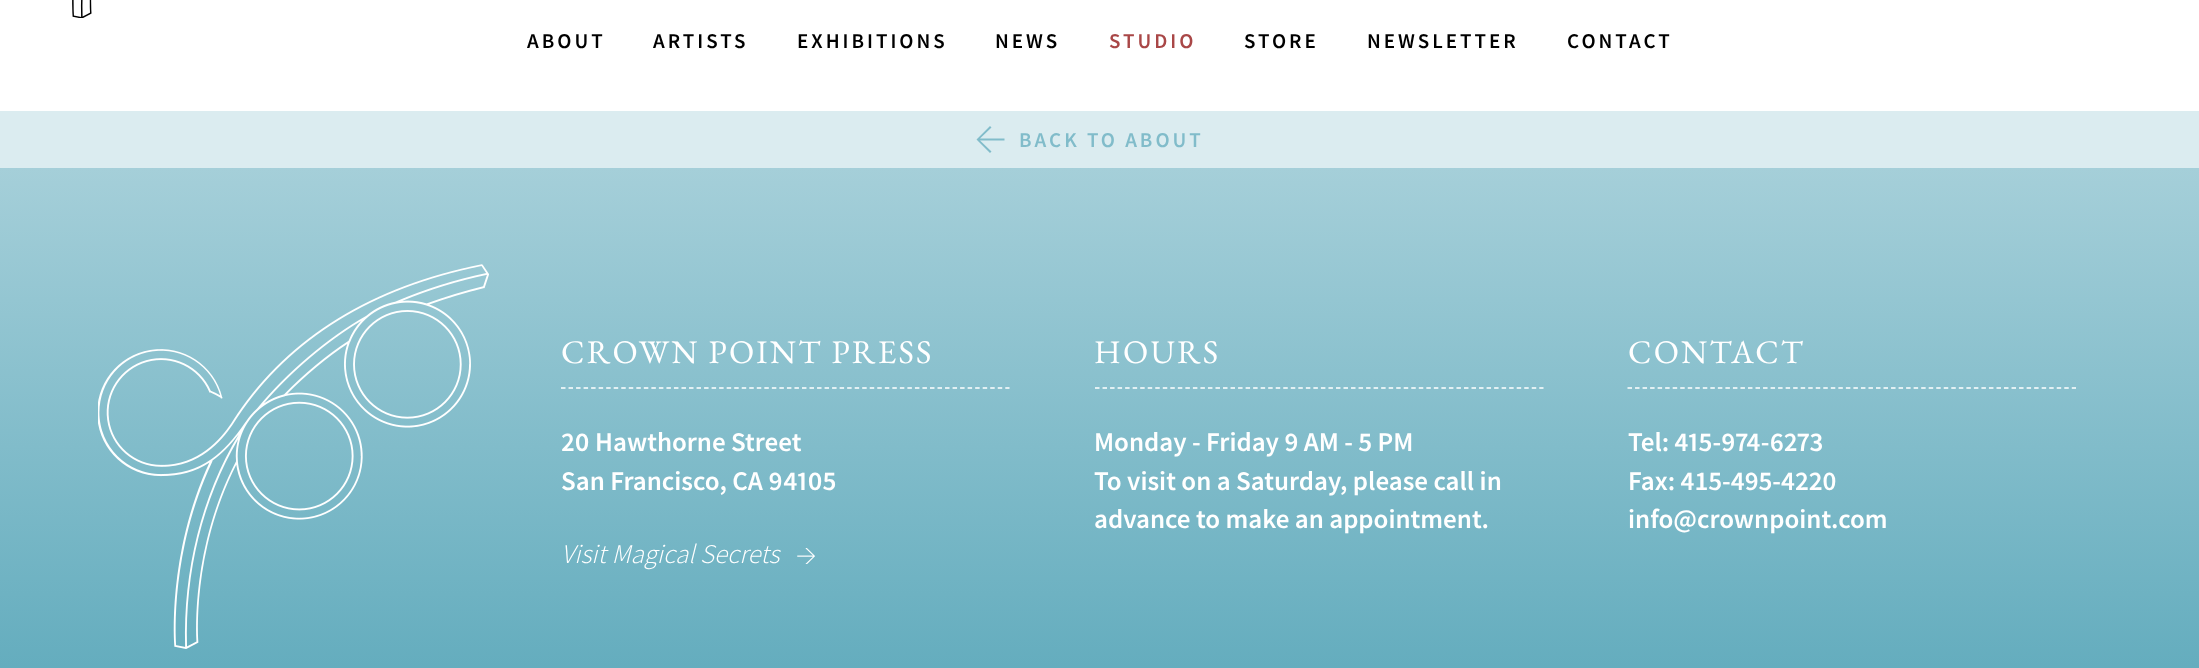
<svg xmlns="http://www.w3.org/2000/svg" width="2199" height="668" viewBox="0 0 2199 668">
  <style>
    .t1 { font: 600 21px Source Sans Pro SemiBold; letter-spacing: 3px; fill: #000; }
    .t2 { font: 600 21px Source Sans Pro SemiBold; letter-spacing: 3px; fill: #a94747; }
    .t3 { font: 600 21px Source Sans Pro SemiBold; letter-spacing: 3px; fill: #81bcca; }
    .t4 { font: 33px EB Garamond; letter-spacing: 2.25px; fill: #fff; }
    .t5 { font: 600 27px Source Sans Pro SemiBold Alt; fill: #fff; }
    .t6 { font: italic 300 27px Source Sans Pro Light; fill: #fff; }
    .t7 { font: 600 27px Source Sans Pro SemiBold; fill: #fff; }
  </style>
  <defs>
    <linearGradient id="g1" gradientUnits="userSpaceOnUse" x1="1100" y1="168" x2="1100" y2="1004"><stop offset="0" stop-color="#a5cfd9"/><stop offset="1" stop-color="#3996ac"/></linearGradient>
  </defs>
  <rect width="100%" height="100%" fill="#fff"/>
  <image x="72" y="0" width="20" height="18" href="images/1.png"/>
  <text x="527" y="48" class="t1">ABOUT</text>
  <text x="653" y="48" class="t1">ARTISTS</text>
  <text x="797" y="48" class="t1">EXHIBITIONS</text>
  <text x="995" y="48" class="t1">NEWS</text>
  <text x="1109" y="48" class="t2">STUDIO</text>
  <text x="1244" y="48" class="t1">STORE</text>
  <text x="1367" y="48" class="t1">NEWSLETTER</text>
  <text x="1567" y="48" class="t1">CONTACT</text>
  <rect x="0" y="111" width="2199" height="57" fill="#dbecf0"/>
  <path d="M976.5 139.5L990 126L991.5 127.5L980 138.5H1004.5V140.5H980L991.5 151.5L990 153Z" fill="#81bcca"/>
  <text x="1019" y="147" class="t3">BACK TO ABOUT</text>
  <rect x="0" y="168" width="2199" height="500" fill="url(#g1)"/>
  <image x="98" y="264" width="391" height="385" href="images/2.png"/>
  <path d="M561 388H1009.5" fill="none" stroke="#fff" stroke-width="1.5" stroke-dasharray="4.5 3.03"/>
  <text x="561" y="363" class="t4">CROWN POINT PRESS</text>
  <text x="561" y="451" class="t5">20 Hawthorne Street</text>
  <text x="561" y="490" class="t5">San Francisco, CA 94105</text>
  <text x="561" y="563" class="t6">Visit Magical Secrets</text>
  <image x="797" y="548" width="18" height="16" href="images/3.png"/>
  <path d="M1095 388H1543.5" fill="none" stroke="#fff" stroke-width="1.5" stroke-dasharray="4.5 3.03"/>
  <text x="1094" y="363" class="t4">HOURS</text>
  <text x="1094" y="451" class="t7">Monday - Friday 9 AM - 5 PM</text>
  <text x="1094" y="490" class="t7">To visit on a Saturday, please call in</text>
  <text x="1094" y="528" class="t7">advance to make an appointment.</text>
  <path d="M1627.5 388H2076" fill="none" stroke="#fff" stroke-width="1.5" stroke-dasharray="4.5 3.03"/>
  <text x="1628" y="363" class="t4">CONTACT</text>
  <text x="1628" y="451" class="t7">Tel:</text>
  <text x="1674" y="451" class="t5">415-974-6273</text>
  <text x="1628" y="490" class="t7">Fax: 415-495-4220</text>
  <text x="1628" y="528" class="t7">info@crownpoint.com</text>
</svg>
